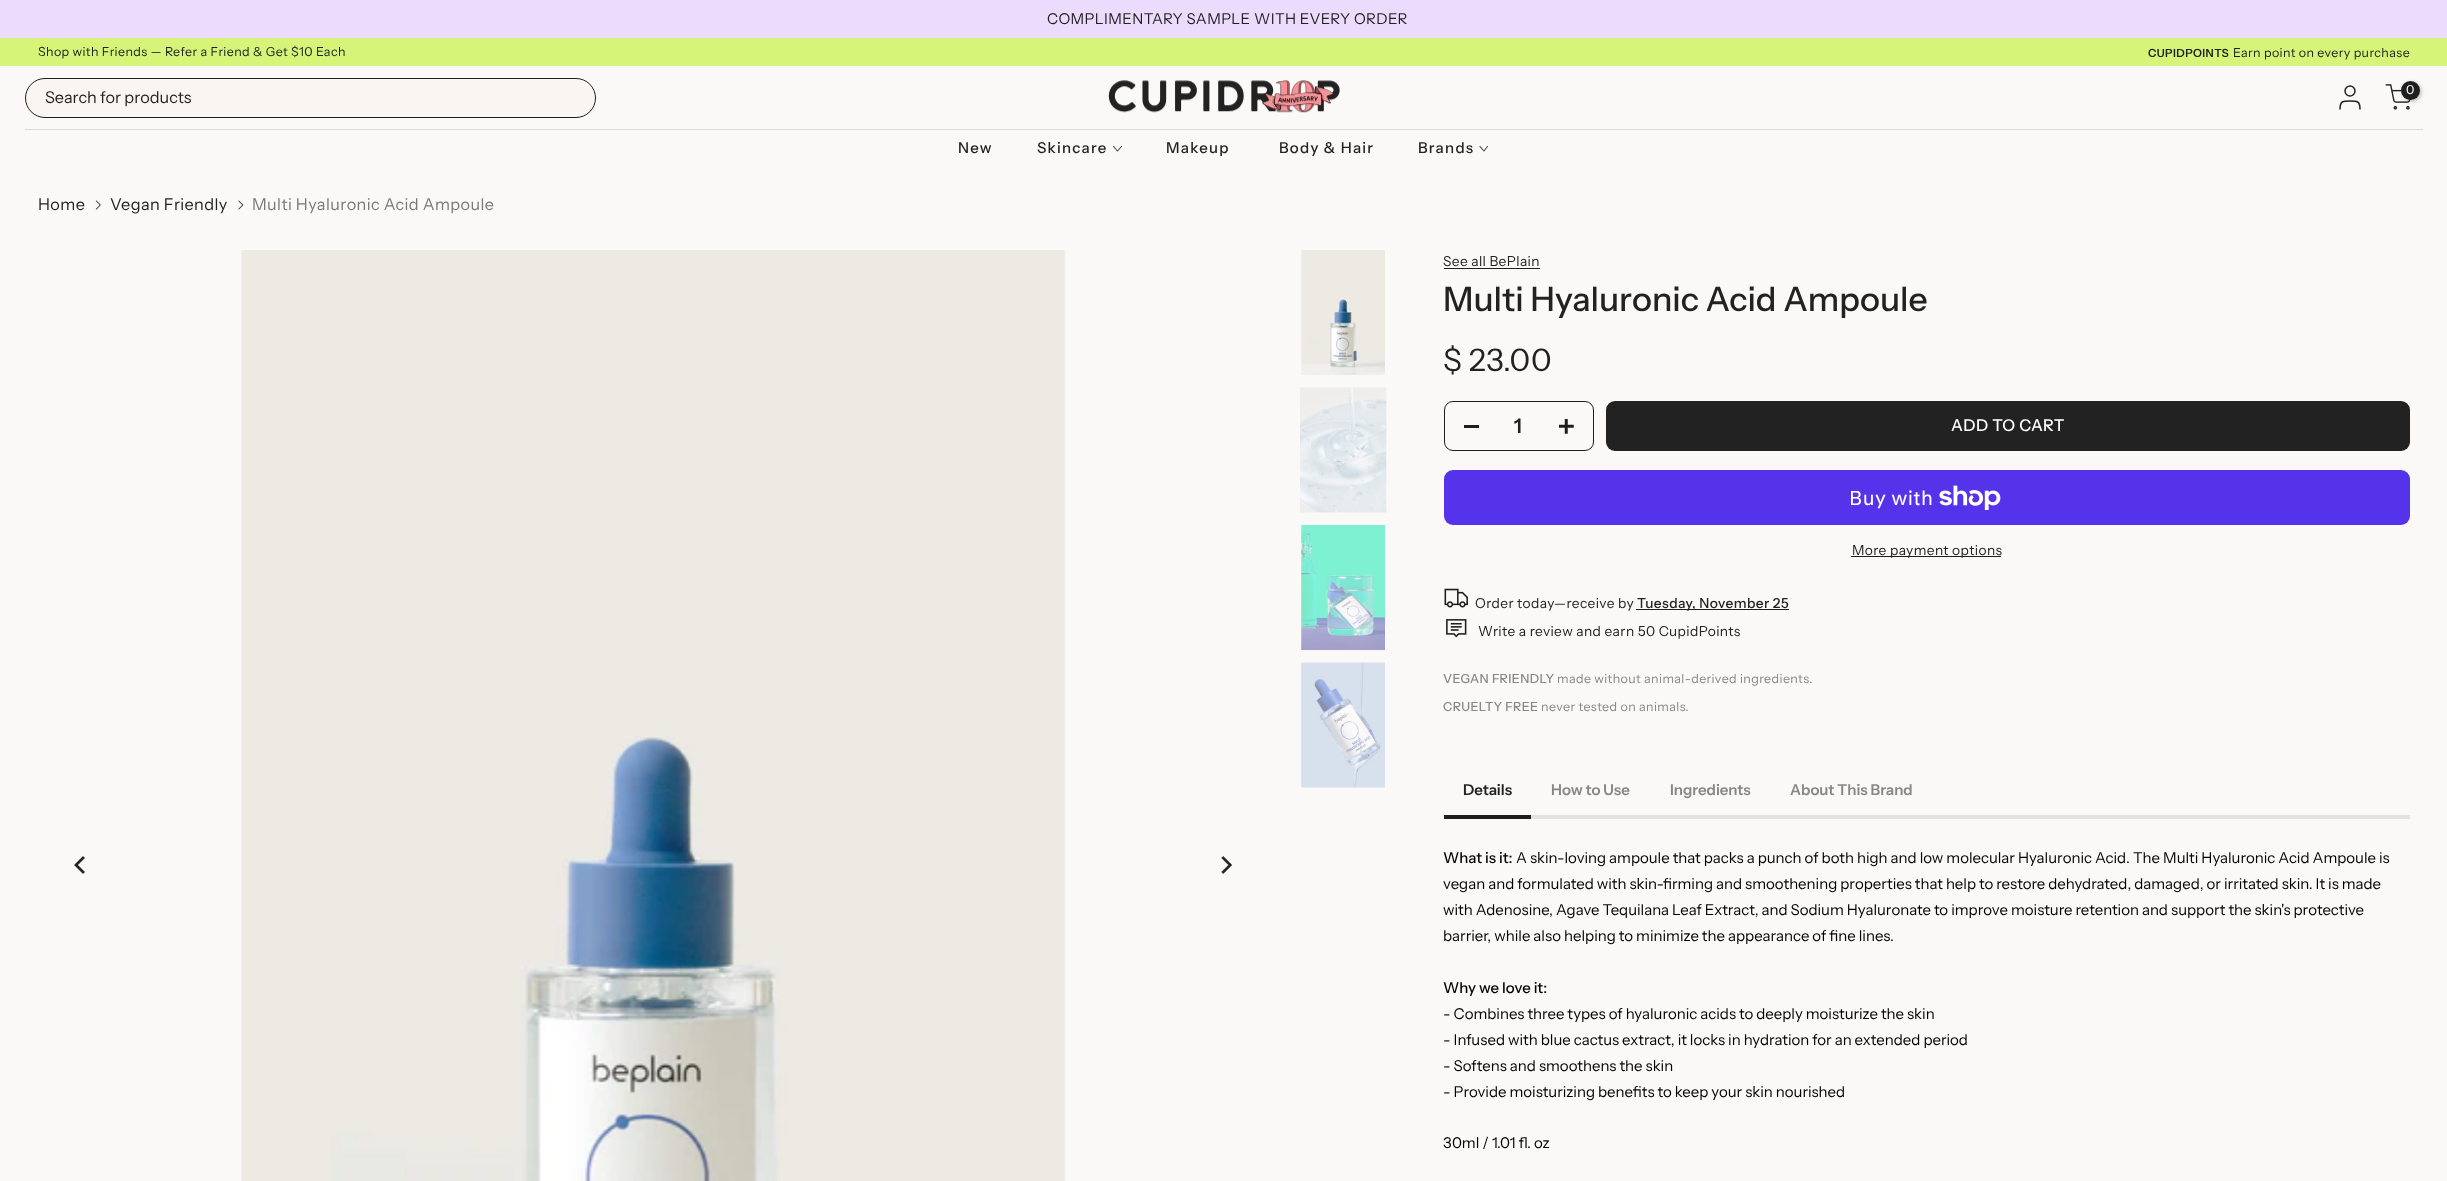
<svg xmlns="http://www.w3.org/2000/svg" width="2447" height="1181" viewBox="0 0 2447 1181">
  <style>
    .t1 { font: 15px Instrument Sans; letter-spacing: 0.4px; fill: #222; }
    .t2 { font: 12.5px Instrument Sans; letter-spacing: 0.4px; fill: #222; }
    .t3 { font: 600 11.25px Instrument Sans; letter-spacing: 0.4px; fill: #222; }
    .t4 { font: 12.5px Instrument Sans; fill: #fff; }
    .t5 { font: 16.25px Instrument Sans; fill: #222; }
    .t6 { font: 500 15px Instrument Sans; letter-spacing: 1.25px; fill: #222; }
    .t7 { font: 16.25px Instrument Sans; letter-spacing: 0.4px; fill: #222; }
    .t8 { font: 16.25px Instrument Sans; letter-spacing: 0.4px; fill: #797877; }
    .t9 { font: 13.75px Instrument Sans; letter-spacing: 0.4px; fill: #222; }
    .t10 { font: 500 33.75px Instrument Sans; fill: #222; }
    .t11 { font: 31px Instrument Sans; letter-spacing: 0.4px; fill: #222; }
    .t12 { font: 600 20px Instrument Sans; fill: #222; }
    .t13 { font: 500 16.25px Instrument Sans; letter-spacing: 0.4px; fill: #fff; }
    .t14 { font: 20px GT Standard; letter-spacing: 0.4px; fill: #fff; }
    .t15 { font: 500 13.75px Instrument Sans; letter-spacing: 0.4px; fill: #222; }
    .t16 { font: 500 12.5px Instrument Sans; letter-spacing: 0.4px; fill: #878787; }
    .t17 { font: 12.5px Instrument Sans; letter-spacing: 0.4px; fill: #878787; }
    .t18 { font: 600 15px Instrument Sans; fill: #222; }
    .t19 { font: 600 15px Instrument Sans; fill: #878787; }
    .t20 { font: 500 15px Instrument Sans; fill: #000; }
    .t21 { font: 15px Instrument Sans; fill: #000; }
  </style>
  <defs>
    <clipPath id="clip1"><rect x="1113" y="146" width="10" height="6"/></clipPath>
  </defs>
  <rect width="100%" height="100%" fill="#fbf9f7"/>
  <rect x="0" y="0" width="2447" height="38" fill="#ecdbfd"/>
  <text x="1047" y="24" class="t1">COMPLIMENTARY SAMPLE WITH EVERY ORDER</text>
  <rect x="0" y="38" width="2447" height="28" fill="#d6f478"/>
  <text x="38" y="56" class="t2">Shop with Friends — Refer a Friend &amp; Get $10 Each</text>
  <text x="2148" y="57" class="t3">CUPIDPOINTS</text>
  <text x="2233" y="57" class="t2">Earn point on every purchase</text>
  <rect x="25" y="129" width="2398" height="1" fill="#dad9d7"/>
  <image x="1108" y="80" width="232" height="33" href="images/1.png"/>
  <circle cx="2350" cy="91" r="5" fill="none" stroke="#222" stroke-width="1.5"/>
  <path d="M2360 109C2360 101 2357 101 2350 101C2343 101 2340 101 2340 109" fill="none" stroke="#222" stroke-width="1.5" stroke-linecap="round" stroke-linejoin="round"/>
  <image x="2385" y="84" width="26" height="26" href="images/2.png"/>
  <rect x="2403" y="83" width="18" height="18" rx="9" fill="#0000004d" filter="blur(2px)"/>
  <circle cx="2410.5" cy="90.5" r="9.5" fill="#1e1e1e"/>
  <text x="2406" y="94" class="t4">0</text>
  <rect x="25.5" y="78.5" width="570" height="39" rx="19.5" fill="#f9f6f2" stroke="#1e1e1e"/>
  <text x="45" y="103" class="t5">Search for products</text>
  <text x="958" y="153" class="t6">New</text>
  <text x="1037" y="153" class="t6">Skincare</text>
  <g clip-path="url(#clip1)">
    <path d="M1121.5 146.5L1117.5 151L1113.5 146.5" fill="none" stroke="#4d4d4d" stroke-width="1.1" stroke-linecap="square"/>
  </g>
  <text x="1166" y="153" class="t6">Makeup</text>
  <text x="1279" y="153" class="t6">Body &amp; Hair</text>
  <text x="1418" y="153" class="t6">Brands</text>
  <path d="M1487.5 146.5L1484 151L1480 146.5" fill="none" stroke="#4d4d4d" stroke-width="1.1" stroke-linecap="square"/>
  <text x="38" y="210" class="t7">Home</text>
  <image x="95" y="200" width="6" height="10" href="images/3.png"/>
  <text x="110" y="210" class="t7">Vegan Friendly</text>
  <image x="238" y="200" width="6" height="10" href="images/4.png"/>
  <text x="252" y="210" class="t8">Multi Hyaluronic Acid Ampoule</text>
  <image x="74" y="856" width="11" height="18" href="images/5.png"/>
  <image x="241" y="250" width="825" height="931" href="images/6.png"/>
  <image x="1221" y="856" width="11" height="18" href="images/7.png"/>
  <image x="1301" y="250" width="84" height="125" href="images/8.png"/>
  <image x="1300" y="387" width="87" height="126" href="images/9.png"/>
  <image x="1301" y="525" width="84" height="125" href="images/10.png"/>
  <image x="1301" y="662" width="84" height="126" href="images/11.png"/>
  <text x="1443" y="266" class="t9">See all BePlain</text>
  <rect x="1444" y="268" width="96" height="1" fill="#1e1e1e"/>
  <text x="1443" y="311" class="t10">Multi Hyaluronic Acid Ampoule</text>
  <text x="1443" y="371" class="t11">$ 23.00</text>
  <rect x="1444.5" y="401.5" width="149" height="49" rx="8.5" fill="none" stroke="#1e1e1e"/>
  <rect x="1464" y="425" width="15" height="3" fill="#1e1e1e"/>
  <text x="1514" y="433" class="t12">1</text>
  <image x="1559" y="419" width="15" height="15" href="images/12.png"/>
  <rect x="1606" y="401" width="804" height="50" rx="9" fill="#222"/>
  <text x="1951" y="431" class="t13">ADD TO CART</text>
  <rect x="1444" y="470" width="966" height="55" rx="9" fill="#5433eb"/>
  <text x="1849" y="505" class="t14">Buy with</text>
  <image x="1939" y="485" width="62" height="25" href="images/13.png"/>
  <rect x="1851" y="556" width="150" height="1" fill="#1e1e1e"/>
  <text x="1852" y="555" class="t9">More payment options</text>
  <image x="1444" y="588" width="24" height="20" href="images/14.png"/>
  <text x="1475" y="608" class="t9">Order today—receive by</text>
  <rect x="1636" y="609" width="153" height="1" fill="#1e1e1e"/>
  <text x="1637" y="608" class="t15">Tuesday, November 25</text>
  <image x="1446" y="619" width="21" height="19" href="images/15.png"/>
  <text x="1478" y="636" class="t9">Write a review and earn 50 CupidPoints</text>
  <text x="1443" y="683" class="t16">VEGAN FRIENDLY</text>
  <text x="1557" y="683" class="t17">made without animal-derived ingredients.</text>
  <text x="1443" y="711" class="t16">CRUELTY FREE</text>
  <text x="1541" y="711" class="t17">never tested on animals.</text>
  <rect x="1531" y="815" width="879" height="4" fill="#e2e2e2"/>
  <rect x="1444" y="815" width="87" height="4" fill="#1e1e1e"/>
  <text x="1463" y="795" class="t18">Details</text>
  <text x="1551" y="795" class="t19">How to Use</text>
  <text x="1670" y="795" class="t19">Ingredients</text>
  <text x="1790" y="795" class="t19">About This Brand</text>
  <text x="1443" y="863" class="t20">What is it:</text>
  <text x="1516" y="863" class="t21">A skin-loving ampoule that packs a punch of both high and low molecular Hyaluronic Acid. The Multi Hyaluronic Acid Ampoule is</text>
  <text x="1443" y="889" class="t21">vegan and formulated with skin-firming and smoothening properties that help to restore dehydrated, damaged, or irritated skin. It is made</text>
  <text x="1443" y="915" class="t21">with Adenosine, Agave Tequilana Leaf Extract, and Sodium Hyaluronate to improve moisture retention and support the skin's protective</text>
  <text x="1443" y="941" class="t21">barrier, while also helping to minimize the appearance of fine lines.</text>
  <text x="1443" y="993" class="t20">Why we love it:</text>
  <text x="1443" y="1019" class="t21">- Combines three types of hyaluronic acids to deeply moisturize the skin</text>
  <text x="1443" y="1045" class="t21">- Infused with blue cactus extract, it locks in hydration for an extended period</text>
  <text x="1443" y="1071" class="t21">- Softens and smoothens the skin</text>
  <text x="1443" y="1097" class="t21">- Provide moisturizing benefits to keep your skin nourished</text>
  <text x="1443" y="1148" class="t21">30ml / 1.01 fl. oz</text>
</svg>
